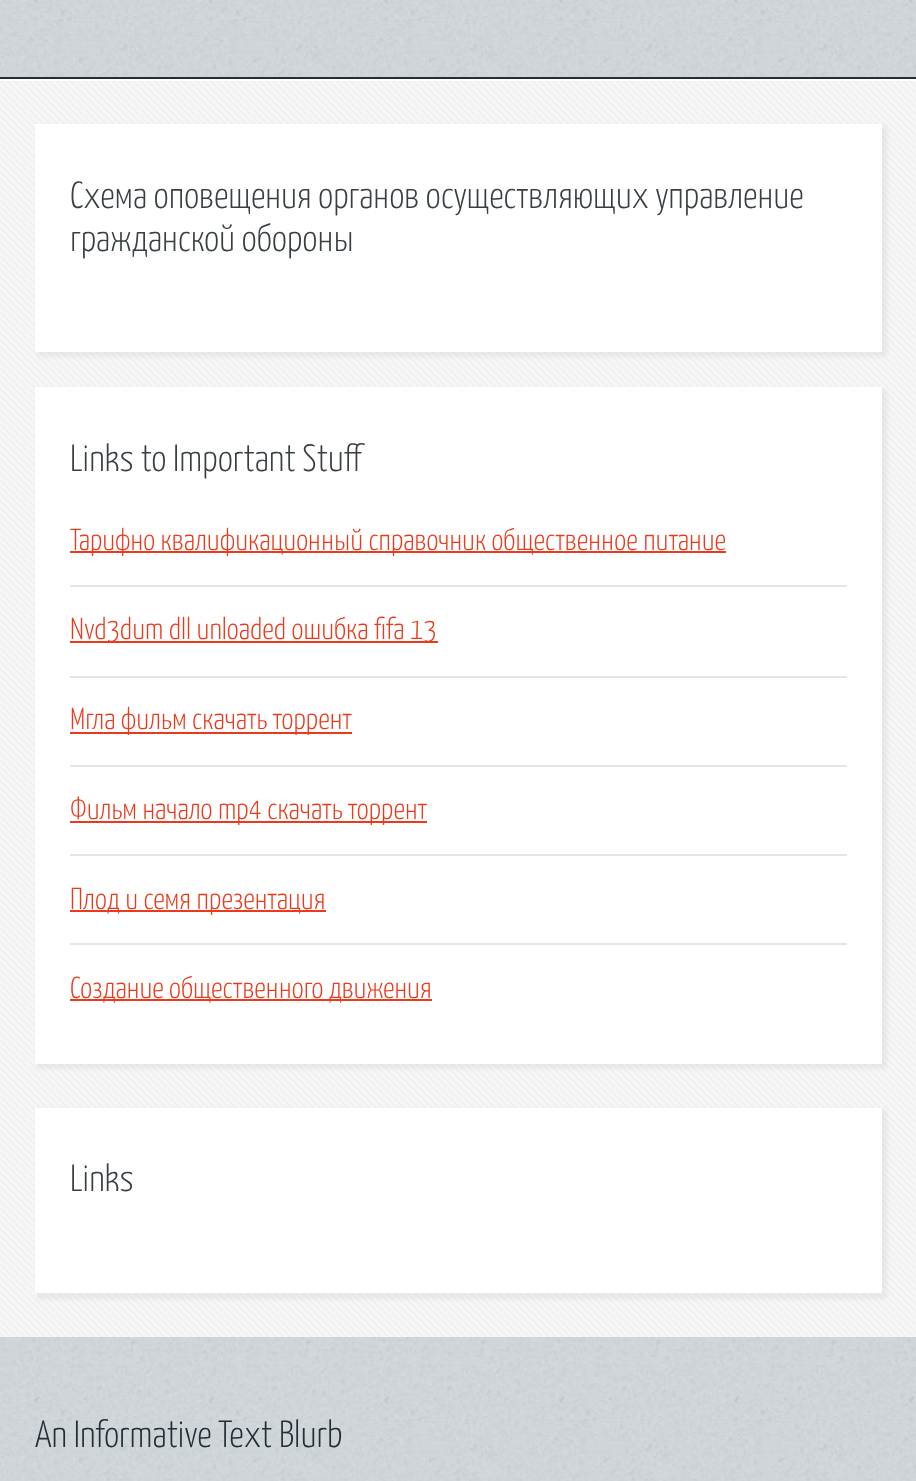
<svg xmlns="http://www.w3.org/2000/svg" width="916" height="1481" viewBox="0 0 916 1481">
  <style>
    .t1 { font: 300 37.9px Yanone Kaffeesatz; fill: #373f42; }
    .t2 { font: 300 30.3px Yanone Kaffeesatz; fill: #ed391b; }
    .t3 { font: 300 37.9px Yanone Kaffeesatz; fill: #212f35; }
  </style>
  <rect width="100%" height="100%" fill="#fff"/>
  <image x="0" y="0" width="916" height="1481" href="images/1.png"/>
  <rect x="0" y="77" width="916" height="2" fill="#272d30"/>
  <rect x="0" y="81" width="916" height="1256" fill="#f7f7f7"/>
  <image x="0" y="81" width="916" height="1257" href="images/2.png"/>
  <rect x="0" y="79" width="916" height="2" fill="#fff"/>
  <rect x="37" y="126" width="850" height="231" fill="#8080801a" filter="blur(2px)"/>
  <rect x="35" y="124" width="847" height="228" fill="#fff"/>
  <text x="70" y="208" class="t1">Схема оповещения органов осуществляющих управление</text>
  <text x="70" y="251" class="t1">гражданской обороны</text>
  <rect x="37" y="389" width="850" height="680" fill="#8080801a" filter="blur(2px)"/>
  <rect x="35" y="387" width="847" height="677" fill="#fff"/>
  <text x="70" y="471" class="t1">Links to Important Stuff</text>
  <rect x="70" y="585" width="777" height="2" fill="#e2e6e8"/>
  <rect x="70" y="551" width="656" height="2" fill="#ed391b"/>
  <text x="70" y="550" class="t2">Тарифно квалификационный справочник общественное питание</text>
  <rect x="70" y="676" width="777" height="2" fill="#e2e6e8"/>
  <rect x="70" y="641" width="368" height="2" fill="#ed391b"/>
  <text x="70" y="639" class="t2">Nvd3dum dll unloaded ошибка fifa 13</text>
  <rect x="70" y="765" width="777" height="2" fill="#e2e6e8"/>
  <rect x="70" y="732" width="282" height="2" fill="#ed391b"/>
  <text x="70" y="729" class="t2">Мгла фильм скачать торрент</text>
  <rect x="70" y="854" width="777" height="2" fill="#e2e6e8"/>
  <rect x="70" y="821" width="357" height="2" fill="#ed391b"/>
  <text x="70" y="819" class="t2">Фильм начало mp4 скачать торрент</text>
  <rect x="70" y="943" width="777" height="2" fill="#e2e6e8"/>
  <rect x="70" y="910" width="256" height="2" fill="#ed391b"/>
  <text x="70" y="909" class="t2">Плод и семя презентация</text>
  <rect x="70" y="999" width="362" height="2" fill="#ed391b"/>
  <text x="70" y="998" class="t2">Создание общественного движения</text>
  <rect x="37" y="1110" width="850" height="189" fill="#8080801a" filter="blur(2px)"/>
  <rect x="35" y="1108" width="847" height="185" fill="#fff"/>
  <text x="70" y="1191" class="t1">Links</text>
  <text x="35" y="1447" class="t3">An Informative Text Blurb</text>
</svg>
